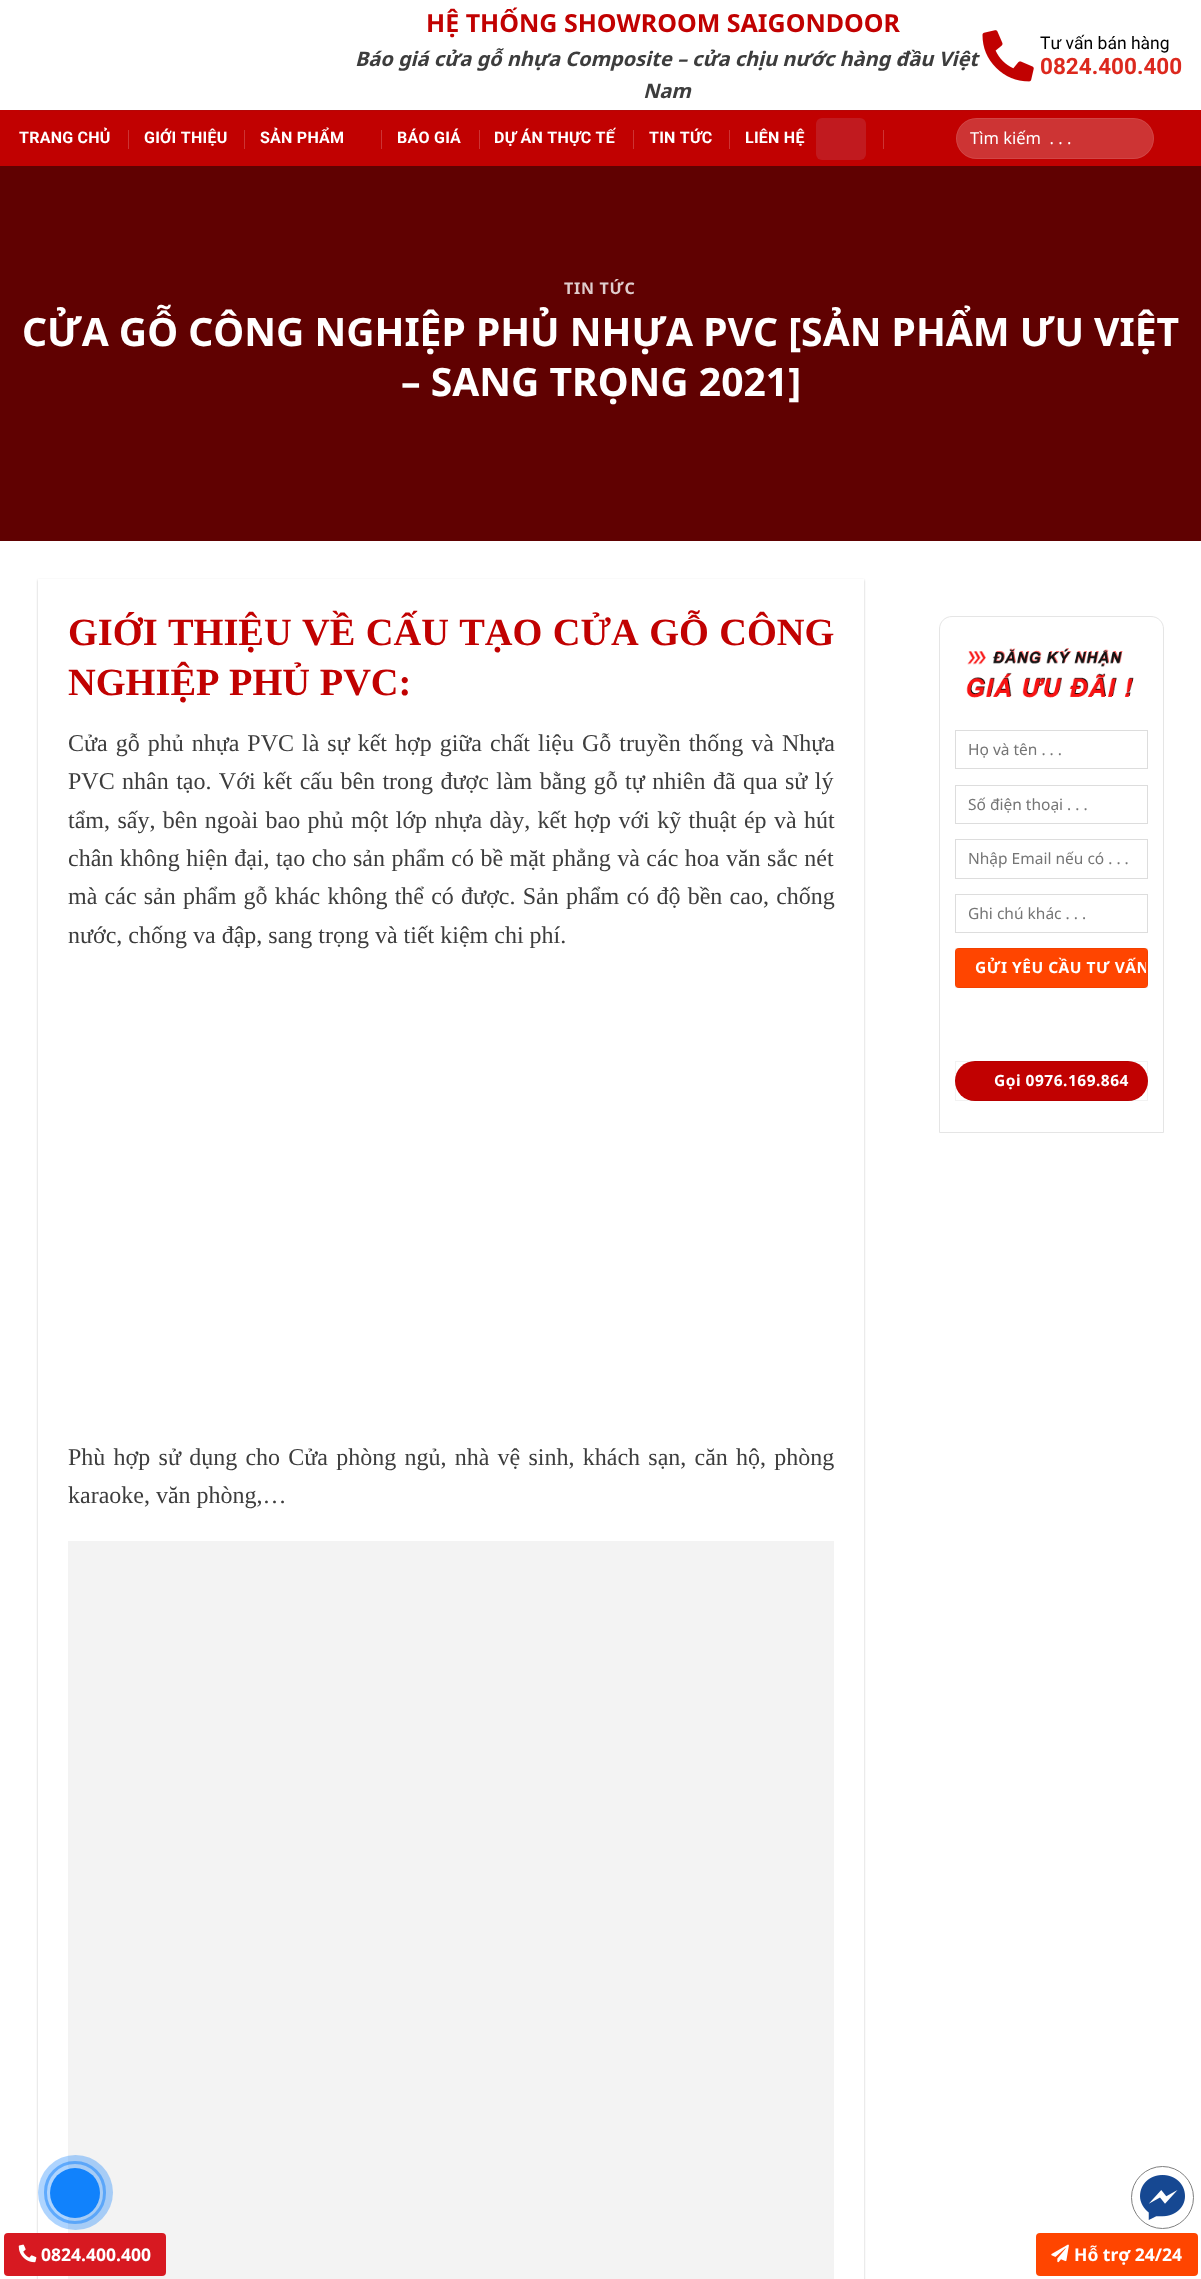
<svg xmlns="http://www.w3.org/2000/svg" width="1201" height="2279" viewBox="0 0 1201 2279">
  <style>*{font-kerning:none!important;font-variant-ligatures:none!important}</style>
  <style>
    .t1 { font: bold 25px Noto Sans; fill: #c10101; }
    .t2 { font: italic bold 20px Noto Sans; fill: #3d3d3d; }
    .t3 { font: 17.5px Roboto; fill: #000; }
    .t4 { font: bold 22.5px Roboto; fill: #dc291e; }
    .t5 { font: bold 16px Roboto; letter-spacing: 0.25px; fill: #fff; }
    .t6 { font: 16.5px Noto Sans; fill: #fff; }
    .t7 { font: bold 16px Noto Sans; letter-spacing: 0.75px; fill: #dfcccc; }
    .t8 { font: bold 39.1px Noto Sans; fill: #fff; }
    .t9 { font: bold 38.4px Liberation Serif; fill: #c10101; }
    .t10 { font: 24px Liberation Serif; fill: #3d3d3d; }
    .t11 { font: 15.5px Noto Sans; fill: #757575; }
    .t12 { font: bold 15.5px Noto Sans; letter-spacing: 0.5px; fill: #fff; }
    .t13 { font: bold 17.5px Noto Sans; fill: #fff; }
  </style>
  <defs>
    <clipPath id="clip1"><rect x="956" y="949" width="190" height="37" rx="2.5"/></clipPath>
  </defs>
  <rect width="100%" height="100%" fill="#fff"/>
  <text x="426" y="32" class="t1">HỆ THỐNG SHOWROOM SAIGONDOOR</text>
  <text x="355" y="66" class="t2">Báo giá cửa gỗ nhựa Composite – cửa chịu nước hàng đầu Việt</text>
  <text x="643" y="98" class="t2">Nam</text>
  <image x="982" y="30" width="52" height="52" href="images/1.png"/>
  <text x="1040" y="49" class="t3">Tư vấn bán hàng</text>
  <text x="1040" y="74" class="t4">0824.400.400</text>
  <rect x="0" y="110" width="1201" height="56" fill="#c10101"/>
  <rect x="19" y="110" width="1164" height="1" fill="#b40707"/>
  <text x="19" y="143" class="t5">TRANG CHỦ</text>
  <rect x="128" y="130" width="1" height="19" fill="#cd3434"/>
  <text x="144" y="143" class="t5">GIỚI THIỆU</text>
  <rect x="244" y="130" width="1" height="19" fill="#cd3434"/>
  <text x="260" y="143" class="t5">SẢN PHẨM</text>
  <rect x="381" y="130" width="1" height="19" fill="#cd3434"/>
  <text x="397" y="143" class="t5">BÁO GIÁ</text>
  <rect x="479" y="130" width="1" height="19" fill="#cd3434"/>
  <text x="494" y="143" class="t5">DỰ ÁN THỰC TẾ</text>
  <rect x="633" y="130" width="1" height="19" fill="#cd3434"/>
  <text x="649" y="143" class="t5">TIN TỨC</text>
  <rect x="729" y="130" width="1" height="19" fill="#cd3434"/>
  <text x="745" y="143" class="t5">LIÊN HỆ</text>
  <rect x="816" y="118" width="50" height="42" rx="6" fill="#c11a1f"/>
  <rect x="883" y="130" width="1" height="19" fill="#cd3434"/>
  <rect x="956" y="118" width="198" height="41" rx="20.5" fill="#cd3434"/>
  <rect x="956.5" y="118.5" width="197" height="40" rx="20" fill="none" stroke="#ffffff17"/>
  <text x="970" y="144" class="t6" xml:space="preserve">Tìm kiếm  . . .</text>
  <rect x="0" y="166" width="1201" height="375" fill="#600101"/>
  <text x="564" y="294" class="t7">TIN TỨC</text>
  <text x="22" y="346" class="t8">CỬA GỖ CÔNG NGHIỆP PHỦ NHỰA PVC [SẢN PHẨM ƯU VIỆT</text>
  <text x="401" y="396" class="t8">– SANG TRỌNG 2021]</text>
  <rect x="38" y="580" width="826" height="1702" fill="#0000003d" filter="blur(1px)"/>
  <rect x="38" y="579" width="826" height="1700" fill="#fff"/>
  <text x="68" y="645" word-spacing="0.75" class="t9">GIỚI THIỆU VỀ CẤU TẠO CỬA GỖ CÔNG</text>
  <text x="68" y="695" class="t9">NGHIỆP PHỦ PVC:</text>
  <text x="68" y="751" word-spacing="2" class="t10">Cửa gỗ phủ nhựa PVC là sự kết hợp giữa chất liệu Gỗ truyền thống và Nhựa</text>
  <text x="68" y="789" word-spacing="1.4" class="t10">PVC nhân tạo. Với kết cấu bên trong được làm bằng gỗ tự nhiên đã qua sử lý</text>
  <text x="68" y="828" word-spacing="1.4" class="t10">tẩm, sấy, bên ngoài bao phủ một lớp nhựa dày, kết hợp với kỹ thuật ép và hút</text>
  <text x="68" y="866" word-spacing="0.5" class="t10">chân không hiện đại, tạo cho sản phẩm có bề mặt phẳng và các hoa văn sắc nét</text>
  <text x="68" y="904" word-spacing="1.25" class="t10">mà các sản phẩm gỗ khác không thể có được. Sản phẩm có độ bền cao, chống</text>
  <text x="68" y="943" class="t10">nước, chống va đập, sang trọng và tiết kiệm chi phí.</text>
  <text x="68" y="1465" word-spacing="2.25" class="t10">Phù hợp sử dụng cho Cửa phòng ngủ, nhà vệ sinh, khách sạn, căn hộ, phòng</text>
  <text x="68" y="1503" class="t10">karaoke, văn phòng,…</text>
  <rect x="68" y="1541" width="766" height="738" fill="#f3f3f3"/>
  <path d="M952 616.5H1151C1158 616.5 1163.5 622 1163.5 629V1132.5H939.5V629C939.5 622 945 616.5 952 616.5Z" fill="none" stroke="#e5e5e5"/>
  <image x="966" y="648" width="168" height="50" href="images/2.png"/>
  <rect x="955.5" y="730.5" width="192" height="38" fill="none" stroke="#ddd"/>
  <text x="968" y="755" class="t11">Họ và tên . . .</text>
  <rect x="955.5" y="785.5" width="192" height="38" fill="none" stroke="#ddd"/>
  <text x="968" y="810" class="t11">Số điện thoại . . .</text>
  <rect x="955.5" y="839.5" width="192" height="39" fill="none" stroke="#ddd"/>
  <text x="968" y="864" class="t11">Nhập Email nếu có . . .</text>
  <rect x="955.5" y="894.5" width="192" height="38" fill="none" stroke="#ddd"/>
  <text x="968" y="919" class="t11">Ghi chú khác . . .</text>
  <rect x="955" y="948" width="193" height="40" rx="4" fill="#ff4500"/>
  <rect x="955.5" y="948.5" width="192" height="39" fill="none" stroke="#0000000d"/>
  <g clip-path="url(#clip1)">
    <text x="975" y="973" class="t12">GỬI YÊU CẦU TƯ VẤN</text>
  </g>
  <rect x="955" y="1061" width="193" height="40" rx="20" fill="#c10101"/>
  <rect x="955.5" y="1061.5" width="192" height="39" fill="none" stroke="#0000000d"/>
  <text x="994" y="1086" class="t12">Gọi 0976.169.864</text>
  <rect x="45.5" y="2162.5" width="59" height="60" rx="29.5" fill="none" stroke="#1182fc80" stroke-width="3"/>
  <circle cx="75.5" cy="2192.5" r="37.5" fill="#1182fc57"/>
  <circle cx="75" cy="2193" r="25" fill="#1182fc"/>
  <circle cx="1162.5" cy="2197.5" r="31" fill="none" stroke="#808080"/>
  <image x="1140" y="2175" width="45" height="45" href="images/3.png"/>
  <rect x="4" y="2233" width="162" height="43" rx="4" fill="#d71921"/>
  <image x="18" y="2244" width="19" height="19" href="images/4.png"/>
  <text x="41" y="2261" class="t13">0824.400.400</text>
  <rect x="1036" y="2233" width="162" height="43" rx="4" fill="#ff4500"/>
  <image x="1051" y="2244" width="18" height="19" href="images/5.png"/>
  <text x="1074" y="2261" class="t13">Hỗ trợ 24/24</text>
</svg>
